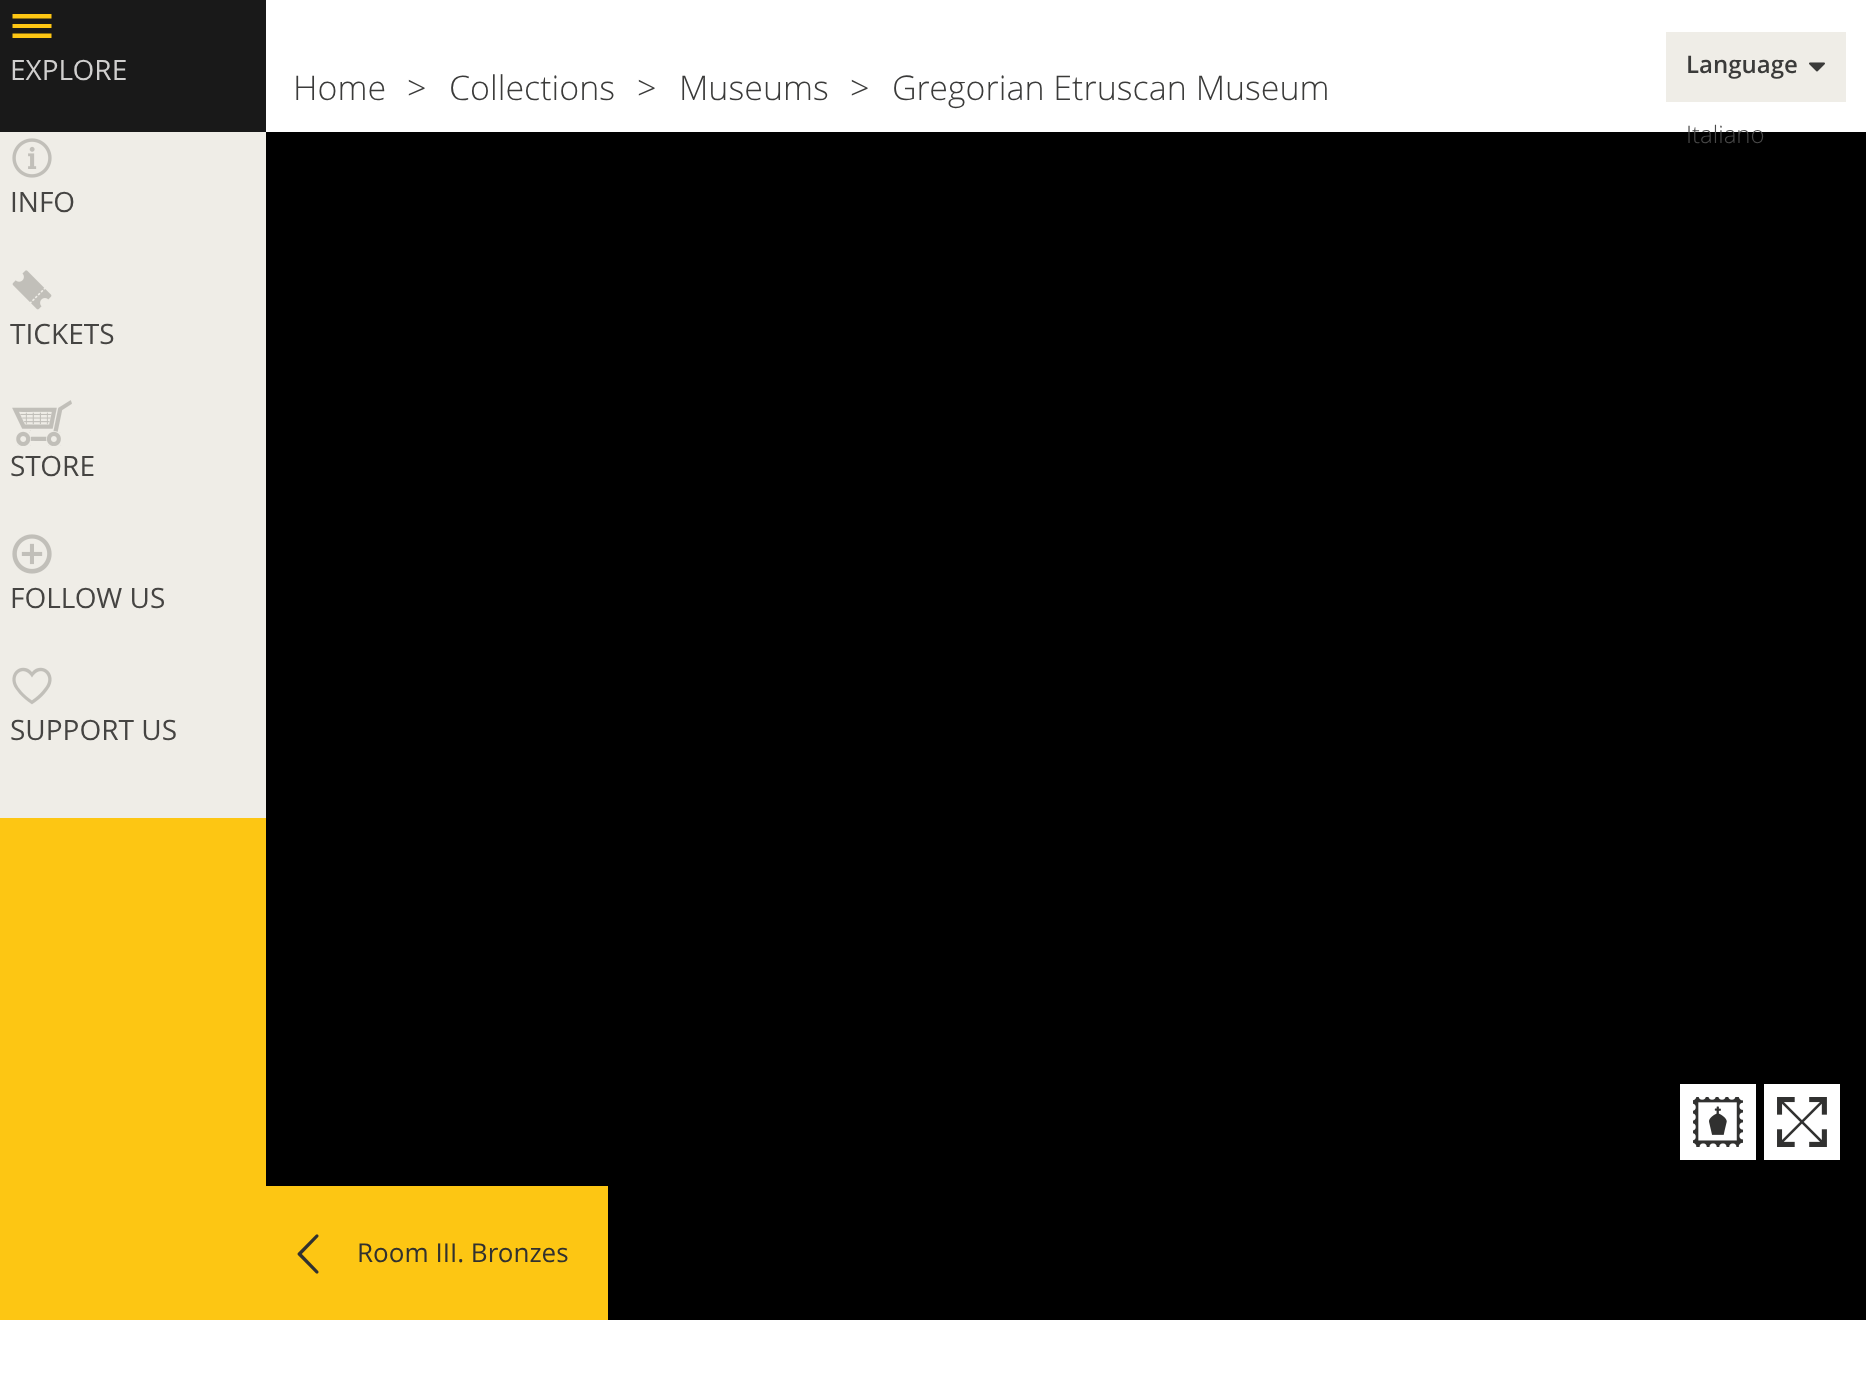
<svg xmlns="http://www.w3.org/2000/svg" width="1866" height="1373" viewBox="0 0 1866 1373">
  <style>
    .t1 { font: 28px Open Sans; fill: #d0cfce; }
    .t2 { font: 28px Open Sans; fill: #454442; }
    .t3 { font: 300 34px Open Sans; fill: #3b3b3a; }
    .t4 { font: 600 24px Open Sans; fill: #3b3b3a; }
    .t5 { font: 300 24px Open Sans; fill: #494949; }
    .t6 { font: 26px Open Sans; fill: #313130; }
  </style>
  <rect width="100%" height="100%" fill="#fff"/>
  <rect x="0" y="818" width="266" height="502" fill="#fdc613"/>
  <rect x="0" y="132" width="266" height="686" fill="#efede7"/>
  <rect x="0" y="0" width="266" height="132" fill="#191919"/>
  <path d="M12.5 14H51.5V18.5H12.5ZM12.5 24H51.5V28H12.5ZM12.5 33.5H51.5V38H12.5Z" fill="#fdc613"/>
  <text x="10" y="80" class="t1">EXPLORE</text>
  <image x="12" y="138" width="40" height="40" href="images/1.png"/>
  <text x="10" y="212" class="t2">INFO</text>
  <image x="12" y="270" width="40" height="40" href="images/2.png"/>
  <text x="10" y="344" class="t2">TICKETS</text>
  <image x="12" y="400" width="60" height="46" href="images/3.png"/>
  <text x="10" y="476" class="t2">STORE</text>
  <image x="12" y="534" width="40" height="40" href="images/4.png"/>
  <text x="10" y="608" class="t2">FOLLOW US</text>
  <image x="12" y="667" width="40" height="38" href="images/5.png"/>
  <text x="10" y="740" class="t2">SUPPORT US</text>
  <text x="293" y="100" class="t3">Home</text>
  <text x="407" y="100" class="t3">&gt;</text>
  <text x="449" y="100" class="t3">Collections</text>
  <text x="637" y="100" class="t3">&gt;</text>
  <text x="679" y="100" class="t3">Museums</text>
  <text x="850" y="100" class="t3">&gt;</text>
  <text x="892" y="100" class="t3">Gregorian Etruscan Museum</text>
  <rect x="1666" y="32" width="180" height="70" fill="#efede7"/>
  <text x="1686" y="73" class="t4">Language</text>
  <image x="1809" y="62" width="16" height="10" href="images/6.png"/>
  <rect x="266" y="132" width="1600" height="1188" fill="#000"/>
  <text x="1686" y="143" class="t5">Italiano</text>
  <rect x="1680" y="1084" width="76" height="76" fill="#fff"/>
  <image x="1693" y="1097" width="50" height="50" href="images/7.png"/>
  <rect x="1764" y="1084" width="76" height="76" fill="#fff"/>
  <image x="1777" y="1097" width="50" height="50" href="images/8.png"/>
  <rect x="266" y="1186" width="342" height="134" fill="#fdc613"/>
  <image x="297" y="1234" width="22" height="40" href="images/9.png"/>
  <text x="357" y="1262" class="t6">Room III. Bronzes</text>
</svg>
